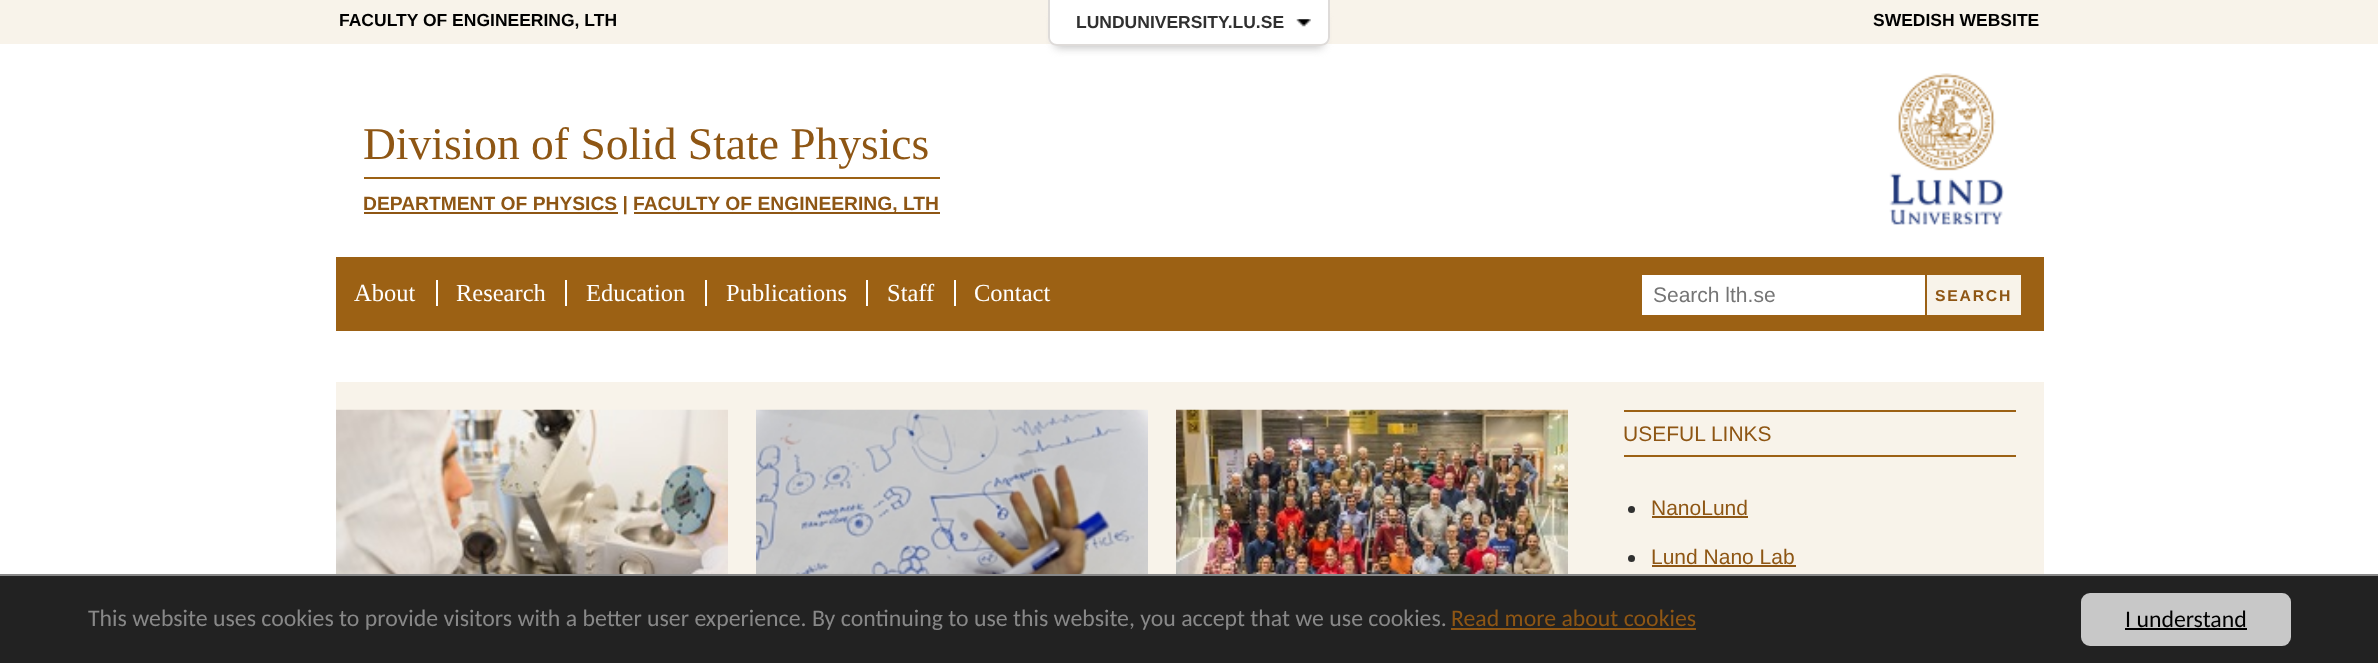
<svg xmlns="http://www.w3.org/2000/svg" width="2378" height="663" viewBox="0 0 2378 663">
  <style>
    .t1 { font: bold 17.5px Liberation Sans; fill: #000; }
    .t2 { font: bold 17.5px Liberation Sans; fill: #303030; }
    .t3 { font: 45.5px Liberation Serif; fill: #8e5614; }
    .t4 { font: bold 19.25px Liberation Sans; fill: #8e5614; }
    .t5 { font: 24.5px Liberation Serif; fill: #fff; }
    .t6 { font: 21px Liberation Sans; fill: #757575; }
    .t7 { font: bold 15.75px Liberation Sans; letter-spacing: 1.75px; fill: #8e5614; }
    .t8 { font: 21px Liberation Sans; fill: #8e5614; }
    .t9 { font: 23.8px Carlito; fill: #888; }
    .t10 { font: 23.8px Carlito; fill: #8e5614; }
    .t11 { font: 23.8px Carlito; fill: #000; }
  </style>
  <rect width="100%" height="100%" fill="#fff"/>
  <rect x="0" y="0" width="2378" height="44" fill="#f8f3ea"/>
  <text x="339" y="26" class="t1">FACULTY OF ENGINEERING, LTH</text>
  <text x="1873" y="26" class="t1">SWEDISH WEBSITE</text>
  <rect x="1055" y="16" width="268" height="31" rx="2" fill="#bbb" filter="blur(5px)"/>
  <path d="M1048 0H1330V37C1330 42 1326 46 1321 46H1057C1052 46 1048 42 1048 37Z" fill="#fff"/>
  <image x="1296" y="19" width="15" height="8" href="images/1.png"/>
  <path d="M1048 0H1330V37C1330 42 1326 46 1321 46H1057C1052 46 1048 42 1048 37ZM1050 0H1328V37C1328 41 1325 44 1321 44H1057C1053 44 1050 41 1050 37Z" fill="#dedbd9" fill-rule="evenodd"/>
  <text x="1076" y="28" class="t2">LUNDUNIVERSITY.LU.SE</text>
  <rect x="364" y="177" width="576" height="2" fill="#9c6114"/>
  <text x="363" y="159" class="t3">Division of Solid State Physics</text>
  <rect x="364" y="212" width="254" height="2" fill="#8e5614"/>
  <text x="363" y="210" class="t4">DEPARTMENT OF PHYSICS |</text>
  <rect x="634" y="212" width="306" height="2" fill="#8e5614"/>
  <text x="633" y="210" class="t4">FACULTY OF ENGINEERING, LTH</text>
  <image x="1889" y="73" width="115" height="152" href="images/2.png"/>
  <rect x="336" y="257" width="1708" height="74" fill="#9c6114"/>
  <text x="354" y="301" class="t5">About</text>
  <rect x="436" y="280" width="2" height="26" fill="#fff"/>
  <text x="456" y="301" class="t5">Research</text>
  <rect x="565" y="280" width="2" height="26" fill="#fff"/>
  <text x="586" y="301" class="t5">Education</text>
  <rect x="705" y="280" width="2" height="26" fill="#fff"/>
  <text x="726" y="301" class="t5">Publications</text>
  <rect x="866" y="280" width="2" height="26" fill="#fff"/>
  <text x="887" y="301" class="t5">Staff</text>
  <rect x="954" y="280" width="2" height="26" fill="#fff"/>
  <text x="974" y="301" class="t5">Contact</text>
  <rect x="1642" y="275" width="283" height="40" fill="#fff"/>
  <text x="1653" y="302" class="t6">Search lth.se</text>
  <rect x="1927" y="275" width="94" height="40" fill="#f8f3ea"/>
  <text x="1935" y="301" class="t7">SEARCH</text>
  <rect x="336" y="382" width="1708" height="192" fill="#f8f3ea"/>
  <image x="336" y="409" width="392" height="165" href="images/3.png"/>
  <image x="756" y="409" width="392" height="165" href="images/4.png"/>
  <image x="1176" y="409" width="392" height="165" href="images/5.png"/>
  <rect x="1624" y="410" width="392" height="2" fill="#9c6114"/>
  <rect x="1624" y="455" width="392" height="2" fill="#9c6114"/>
  <text x="1623" y="441" class="t8">USEFUL LINKS</text>
  <circle cx="1631.5" cy="509.5" r="3.5" fill="#303030"/>
  <text x="1651" y="515" class="t8">NanoLund</text>
  <rect x="1652" y="516" width="96" height="2" fill="#8e5614"/>
  <circle cx="1631.5" cy="558.5" r="3.5" fill="#303030"/>
  <text x="1651" y="564" class="t8">Lund Nano Lab</text>
  <rect x="1652" y="565" width="144" height="2" fill="#8e5614"/>
  <rect x="0" y="576" width="2378" height="87" fill="#222"/>
  <rect x="0" y="574" width="2378" height="2" fill="#888"/>
  <text x="88" y="626" class="t9">This website uses cookies to provide visitors with a better user experience. By continuing to use this website, you accept that we use cookies.</text>
  <text x="1451" y="626" class="t10">Read more about cookies</text>
  <rect x="1451" y="628" width="245" height="2" fill="#8e5614"/>
  <rect x="2081" y="593" width="210" height="53" rx="9" fill="#c8c8c8"/>
  <text x="2125" y="627" class="t11">I understand</text>
  <rect x="2125" y="628" width="122" height="2" fill="#000"/>
</svg>
